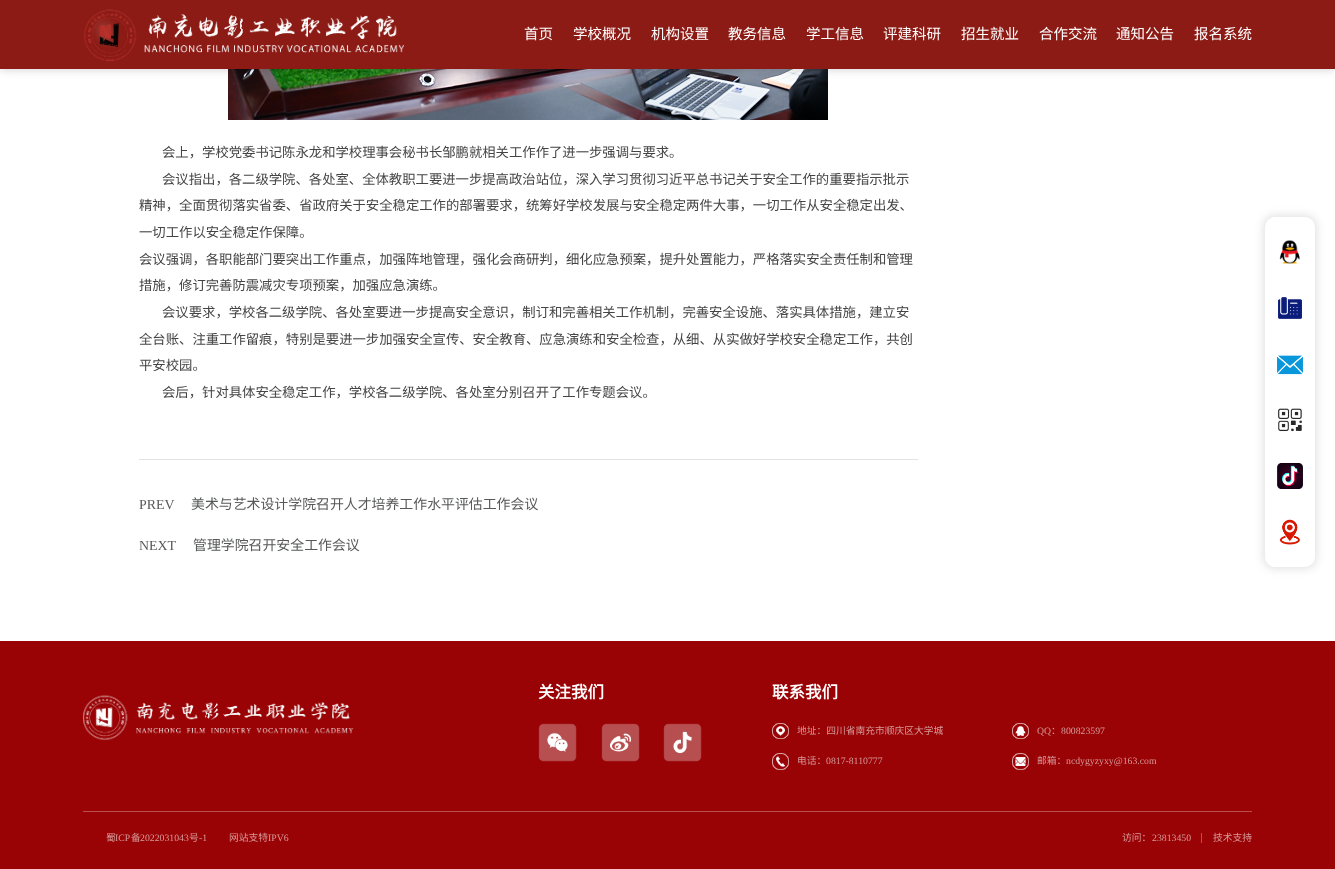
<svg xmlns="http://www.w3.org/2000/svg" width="1335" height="869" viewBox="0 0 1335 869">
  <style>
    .t1 { font: 14.5px Noto Sans CJK SC; fill: #fff; }
    .t2 { font: 13.35px Noto Sans CJK SC; fill: #444; }
    .t3 { font: 13.9px Liberation Serif; fill: #575859; }
    .t4 { font: 13.9px Noto Sans CJK SC; fill: #575859; }
    .t5 { font: bold 16.5px Noto Sans CJK SC; fill: #fff; }
    .t6 { font: 9.75px Noto Sans CJK SC; fill: #d79999; }
    .t7 { font: 9.75px Liberation Serif; fill: #d79999; }
  </style>
  <rect width="100%" height="100%" fill="#fff"/>
  <image x="228" y="69" width="600" height="51" href="images/2.png"/>
  <rect x="0" y="0" width="1335" height="69" fill="#00000033" filter="blur(5px)"/>
  <rect x="0" y="0" width="1335" height="69" fill="#8c1b15"/>
  <image x="84" y="9" width="320" height="53" href="images/1.png"/>
  <text x="524" y="39" class="t1">首页</text>
  <text x="573" y="39" class="t1">学校概况</text>
  <text x="651" y="39" class="t1">机构设置</text>
  <text x="728" y="39" class="t1">教务信息</text>
  <text x="806" y="39" class="t1">学工信息</text>
  <text x="883" y="39" class="t1">评建科研</text>
  <text x="961" y="39" class="t1">招生就业</text>
  <text x="1039" y="39" class="t1">合作交流</text>
  <text x="1116" y="39" class="t1">通知公告</text>
  <text x="1194" y="39" class="t1">报名系统</text>
  <rect x="139" y="459" width="779" height="1" fill="#e1e3e5"/>
  <text x="162" y="157" class="t2">会上，学校党委书记陈永龙和学校理事会秘书长邹鹏就相关工作作了进一步强调与要求。</text>
  <text x="162" y="184" class="t2">会议指出，各二级学院、各处室、全体教职工要进一步提高政治站位，深入学习贯彻习近平总书记关于安全工作的重要指示批示</text>
  <text x="139" y="210" class="t2">精神，全面贯彻落实省委、省政府关于安全稳定工作的部署要求，统筹好学校发展与安全稳定两件大事，一切工作从安全稳定出发、</text>
  <text x="139" y="237" class="t2">一切工作以安全稳定作保障。</text>
  <text x="139" y="264" class="t2">会议强调，各职能部门要突出工作重点，加强阵地管理，强化会商研判，细化应急预案，提升处置能力，严格落实安全责任制和管理</text>
  <text x="139" y="290" class="t2">措施，修订完善防震减灾专项预案，加强应急演练。</text>
  <text x="162" y="317" class="t2">会议要求，学校各二级学院、各处室要进一步提高安全意识，制订和完善相关工作机制，完善安全设施、落实具体措施，建立安</text>
  <text x="139" y="344" class="t2">全台账、注重工作留痕，特别是要进一步加强安全宣传、安全教育、应急演练和安全检查，从细、从实做好学校安全稳定工作，共创</text>
  <text x="139" y="370" class="t2">平安校园。</text>
  <text x="162" y="397" class="t2">会后，针对具体安全稳定工作，学校各二级学院、各处室分别召开了工作专题会议。</text>
  <text x="139" y="509" class="t3">PREV</text>
  <text x="191" y="509" class="t4">美术与艺术设计学院召开人才培养工作水平评估工作会议</text>
  <text x="139" y="550" class="t3">NEXT</text>
  <text x="193" y="550" class="t4">管理学院召开安全工作会议</text>
  <rect x="1263" y="215" width="54" height="354" rx="12" fill="#20202021" filter="blur(4px)"/>
  <rect x="1265" y="217" width="50" height="350" rx="10" fill="#fff"/>
  <image x="1279" y="240" width="21" height="25" href="images/3.png"/>
  <image x="1278" y="297" width="24" height="22" href="images/4.png"/>
  <image x="1277" y="355" width="26" height="20" href="images/5.png"/>
  <image x="1278" y="408" width="24" height="24" href="images/6.png"/>
  <image x="1277" y="463" width="26" height="26" href="images/7.png"/>
  <image x="1279" y="519" width="21" height="26" href="images/8.png"/>
  <rect x="0" y="641" width="1335" height="228" fill="#990305"/>
  <rect x="83" y="811" width="1169" height="1" fill="#b84f50"/>
  <image x="83" y="695" width="271" height="46" href="images/9.png"/>
  <text x="538" y="698" class="t5">关注我们</text>
  <image x="538" y="723" width="39" height="39" href="images/10.png"/>
  <image x="601" y="723" width="39" height="39" href="images/11.png"/>
  <image x="663" y="723" width="39" height="39" href="images/12.png"/>
  <text x="772" y="698" class="t5">联系我们</text>
  <image x="772" y="723" width="17" height="16" href="images/13.png"/>
  <text x="797" y="734" class="t6">地址：四川省南充市顺庆区大学城</text>
  <image x="1012" y="723" width="17" height="16" href="images/14.png"/>
  <text x="1037" y="734" class="t7">QQ</text>
  <text x="1051" y="734" class="t6">：</text>
  <text x="1061" y="734" class="t7">800823597</text>
  <image x="772" y="753" width="17" height="17" href="images/15.png"/>
  <text x="797" y="764" class="t6">电话：</text>
  <text x="826" y="764" class="t7">0817-8110777</text>
  <image x="1012" y="753" width="17" height="17" href="images/16.png"/>
  <text x="1037" y="764" class="t6">邮箱：</text>
  <text x="1066" y="764" class="t7">ncdygyzyxy@163.com</text>
  <text x="106" y="841" class="t6">蜀</text>
  <text x="115" y="841" class="t7">ICP</text>
  <text x="131" y="841" class="t6">备</text>
  <text x="140" y="841" class="t7">2022031043</text>
  <text x="189" y="841" class="t6">号</text>
  <text x="199" y="841" class="t7">-1</text>
  <text x="229" y="841" class="t6">网站支特</text>
  <text x="268" y="841" class="t7">IPV6</text>
  <text x="1122" y="841" class="t6">访问：</text>
  <text x="1152" y="841" class="t7">23813450</text>
  <rect x="1201" y="833" width="1" height="10" fill="#b84f50"/>
  <text x="1213" y="841" class="t6">技术支持</text>
</svg>
